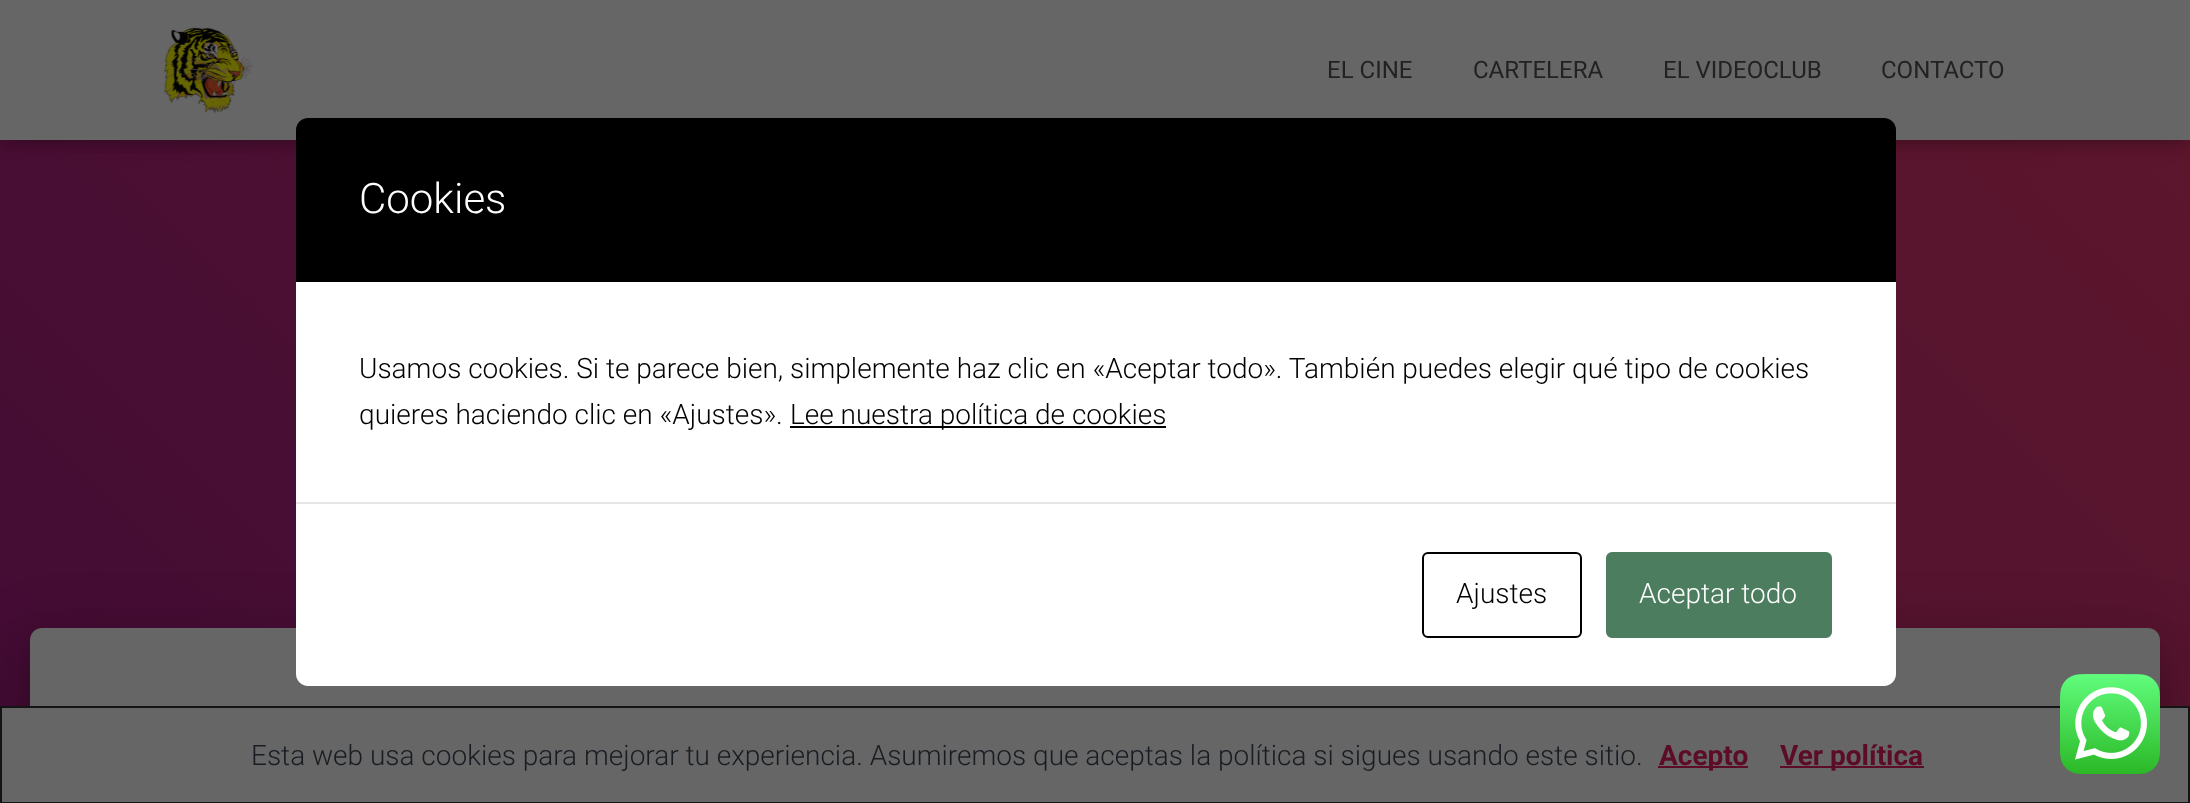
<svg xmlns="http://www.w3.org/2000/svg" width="2190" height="803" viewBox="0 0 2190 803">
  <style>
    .t1 { font: 24px Roboto; fill: #222; }
    .t2 { font: 300 42px Roboto; fill: #fff; }
    .t3 { font: 300 28px Roboto; fill: #000; }
    .t4 { font: 300 28px Roboto; fill: #fff; }
    .t5 { font: 300 28px Roboto; fill: #181d23; }
    .t6 { font: bold 28px Roboto; fill: #5d0c28; }
  </style>
  <defs>
    <linearGradient id="g1" gradientUnits="userSpaceOnUse" x1="333" y1="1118" x2="1857" y2="-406"><stop offset="0" stop-color="#430c35"/><stop offset="1" stop-color="#5e172c"/></linearGradient>
  </defs>
  <rect width="100%" height="100%" fill="#fff"/>
  <rect x="0" y="140" width="2190" height="566" fill="url(#g1)"/>
  <rect x="4" y="12" width="2182" height="132" fill="#0000001a" filter="blur(5px)"/>
  <rect x="0" y="2" width="2190" height="140" fill="#0000001f" filter="blur(10px)"/>
  <rect x="12" y="14" width="2166" height="116" fill="#0000006b" filter="blur(10px)"/>
  <rect x="0" y="0" width="2190" height="140" fill="#666"/>
  <image x="164" y="27" width="89" height="86" href="images/1.png"/>
  <text x="1327" y="78" class="t1">EL CINE</text>
  <text x="1473" y="78" class="t1">CARTELERA</text>
  <text x="1663" y="78" class="t1">EL VIDEOCLUB</text>
  <text x="1881" y="78" class="t1">CONTACTO</text>
  <rect x="40" y="654" width="2110" height="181" rx="2" fill="#00000033" filter="blur(10px)"/>
  <rect x="20" y="630" width="2150" height="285" rx="22" fill="#0000001f" filter="blur(30px)"/>
  <rect x="26" y="656" width="2138" height="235" rx="16" fill="#00000024" filter="blur(24px)"/>
  <path d="M42 628H2148C2154.5 628 2160 633.5 2160 640V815H30V640C30 633.5 35.5 628 42 628Z" fill="#666"/>
  <path d="M308 118H1884C1890.5 118 1896 123.5 1896 130V282H296V130C296 123.5 301.5 118 308 118Z" fill="#000"/>
  <text x="359" y="213" class="t2">Cookies</text>
  <rect x="296" y="282" width="1600" height="220" fill="#fff"/>
  <text x="359" y="378" class="t3">Usamos cookies. Si te parece bien, simplemente haz clic en «Aceptar todo». También puedes elegir qué tipo de cookies</text>
  <text x="359" y="424" class="t3">quieres haciendo clic en «Ajustes».</text>
  <rect x="790" y="426" width="376" height="2" fill="#000"/>
  <text x="790" y="424" class="t3">Lee nuestra política de cookies</text>
  <path d="M296 502H1896V674C1896 680.5 1890.5 686 1884 686H308C301.5 686 296 680.5 296 674Z" fill="#fff"/>
  <rect x="296" y="502" width="1600" height="2" fill="#e6e6e6"/>
  <rect x="1423" y="553" width="158" height="84" rx="5" fill="none" stroke="#000" stroke-width="2"/>
  <text x="1456" y="603" class="t3">Ajustes</text>
  <rect x="1607" y="553" width="224" height="84" rx="5" fill="#4b7d5e" stroke="#4b7d5e" stroke-width="2"/>
  <text x="1639" y="603" class="t4">Aceptar todo</text>
  <rect x="1" y="707" width="2188" height="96" fill="#666" stroke="#141414" stroke-width="2"/>
  <text x="251" y="765" class="t5">Esta web usa cookies para mejorar tu experiencia. Asumiremos que aceptas la política si sigues usando este sitio.</text>
  <rect x="1658" y="766" width="90" height="2" fill="#5d0c28"/>
  <text x="1659" y="765" class="t6">Acepto</text>
  <rect x="1780" y="766" width="144" height="2" fill="#5d0c28"/>
  <text x="1780" y="765" class="t6">Ver política</text>
  <image x="2060" y="674" width="100" height="100" href="images/2.png"/>
</svg>
